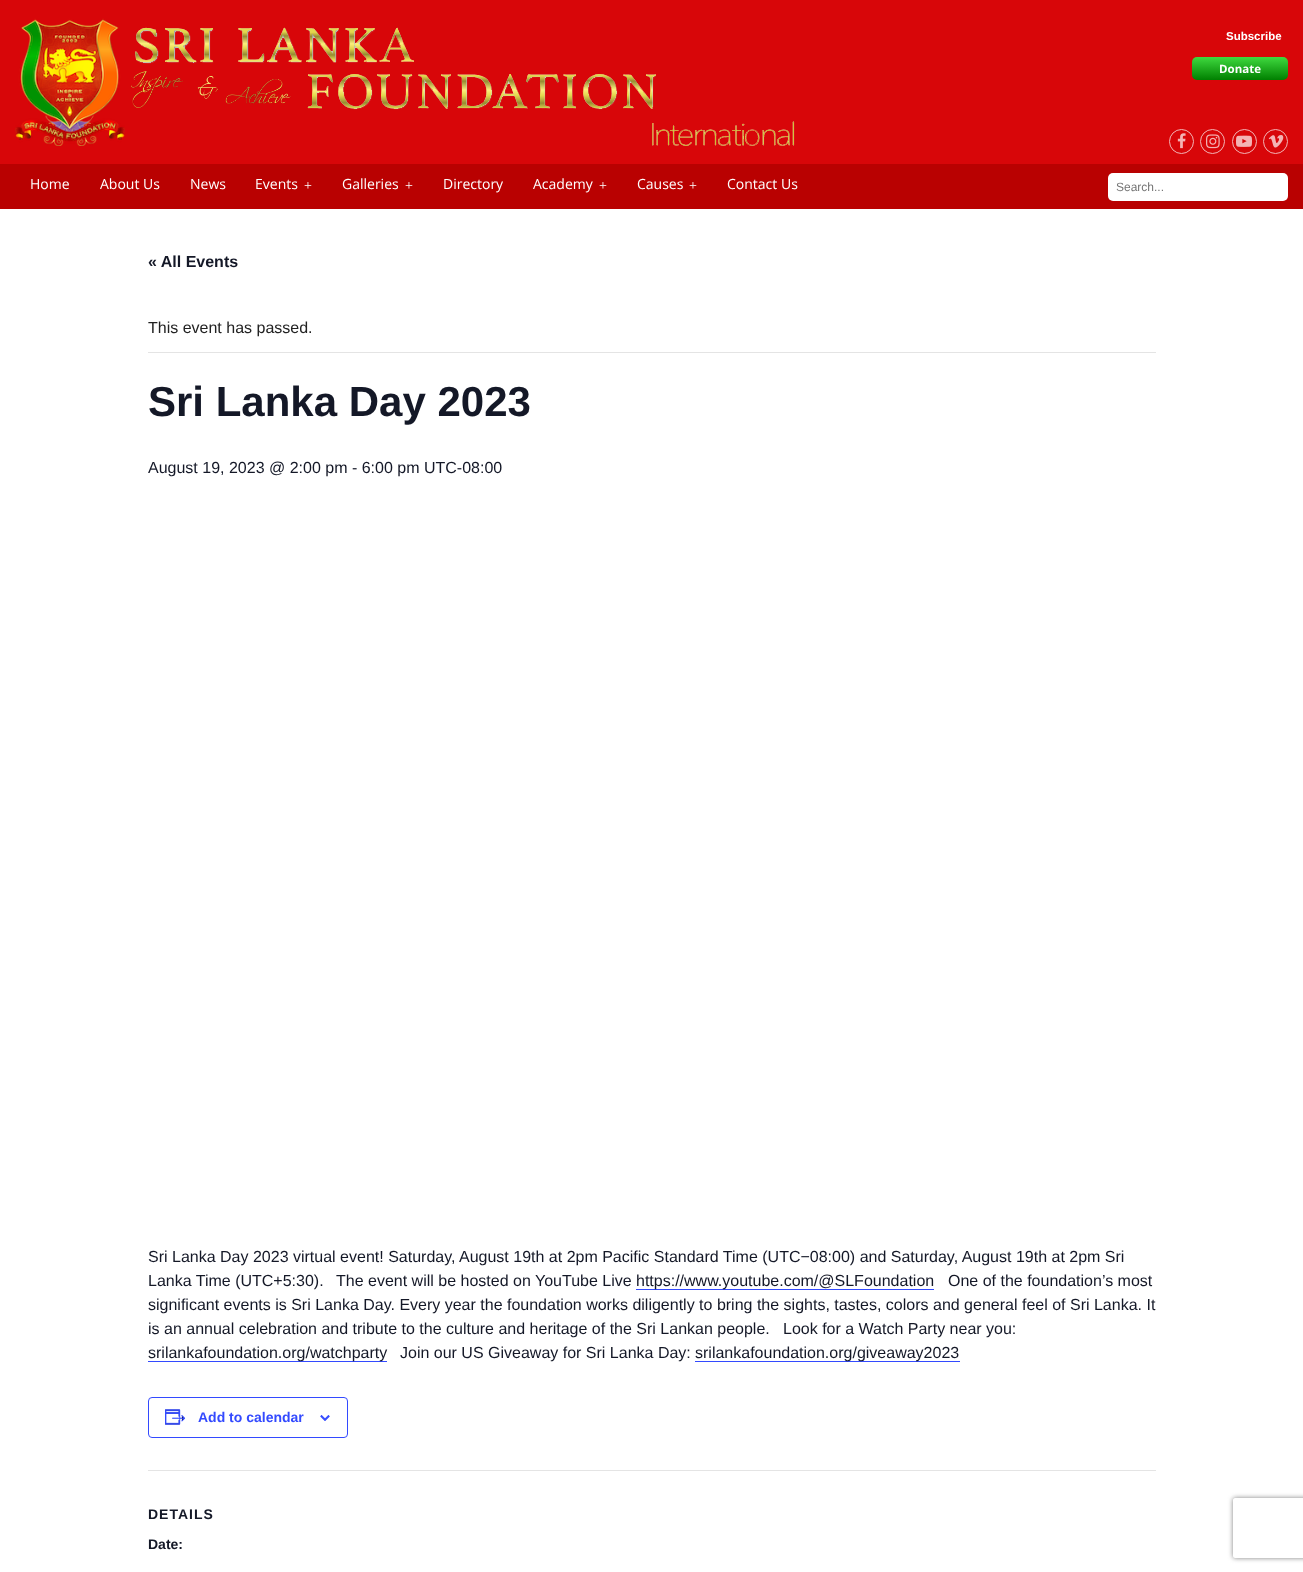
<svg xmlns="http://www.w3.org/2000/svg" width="1303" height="1572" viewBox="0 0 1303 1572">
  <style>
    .t1 { font: bold 11.5px Liberation Sans; fill: #fff; }
    .t2 { font: bold 11.5px Open Sans; fill: #fff; }
    .t3 { font: 14px Open Sans; fill: #fff; }
    .t4 { font: 14px Liberation Serif; fill: #fff; }
    .t5 { font: 12px Liberation Sans; fill: #757575; }
    .t6 { font: bold 16px Liberation Sans; fill: #141827; }
    .t7 { font: 16px Liberation Sans; fill: #222; }
    .t8 { font: bold 42px Liberation Sans; fill: #141827; }
    .t9 { font: 16px Liberation Sans; fill: #141827; }
    .t10 { font: bold 14px Liberation Sans; fill: #334aff; }
    .t11 { font: bold 14px Liberation Sans; letter-spacing: 1px; fill: #141827; }
    .t12 { font: bold 14px Liberation Sans; fill: #141827; }
  </style>
  <defs>
    <linearGradient id="g1" gradientUnits="userSpaceOnUse" x1="1240" y1="57" x2="1240" y2="80"><stop offset="0" stop-color="#3fd93f"/><stop offset="1" stop-color="#008000"/></linearGradient>
    <clipPath id="clip1"><path d="M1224 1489H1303V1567H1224ZM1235 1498H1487C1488 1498 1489 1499 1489 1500V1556C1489 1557 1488 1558 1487 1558H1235C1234 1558 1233 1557 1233 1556V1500C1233 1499 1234 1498 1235 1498Z" clip-rule="evenodd"/></clipPath>
  </defs>
  <rect width="100%" height="100%" fill="#fff"/>
  <rect x="0" y="0" width="1303" height="164" fill="#d80609"/>
  <image x="15" y="18" width="110" height="128" href="images/1.png"/>
  <image x="135" y="27" width="279" height="37" href="images/2.png"/>
  <image x="131" y="71" width="160" height="37" href="images/3.png"/>
  <image x="307" y="74" width="349" height="36" href="images/4.png"/>
  <image x="652" y="121" width="143" height="25" href="images/5.png"/>
  <text x="1226" y="40" class="t1">Subscribe</text>
  <rect x="1192" y="57" width="96" height="23" rx="5" fill="url(#g1)"/>
  <text x="1219" y="73" class="t2">Donate</text>
  <circle cx="1181.5" cy="141.5" r="12" fill="none" stroke="#f3b4b5"/>
  <image x="1177" y="133" width="9" height="16" href="images/6.png"/>
  <circle cx="1212.5" cy="141.5" r="12" fill="none" stroke="#f3b4b5"/>
  <image x="1206" y="134" width="14" height="15" href="images/7.png"/>
  <circle cx="1244.5" cy="141.5" r="12" fill="none" stroke="#f3b4b5"/>
  <image x="1236" y="135" width="16" height="12" href="images/8.png"/>
  <circle cx="1275.5" cy="141.5" r="12" fill="none" stroke="#f3b4b5"/>
  <image x="1268" y="135" width="16" height="13" href="images/9.png"/>
  <rect x="0" y="164" width="1303" height="45" fill="#b90101"/>
  <text x="30" y="189" class="t3">Home</text>
  <text x="100" y="189" class="t3">About Us</text>
  <text x="190" y="189" class="t3">News</text>
  <text x="255" y="189" class="t3">Events</text>
  <text x="304" y="190" class="t4">+</text>
  <text x="342" y="189" class="t3">Galleries</text>
  <text x="405" y="190" class="t4">+</text>
  <text x="443" y="189" class="t3">Directory</text>
  <text x="533" y="189" class="t3">Academy</text>
  <text x="599" y="190" class="t4">+</text>
  <text x="637" y="189" class="t3">Causes</text>
  <text x="689" y="190" class="t4">+</text>
  <text x="727" y="189" class="t3">Contact Us</text>
  <rect x="1108" y="173" width="180" height="28" rx="5" fill="#fff"/>
  <text x="1116" y="191" class="t5">Search...</text>
  <text x="148" y="267" class="t6">« All Events</text>
  <rect x="148" y="352" width="1008" height="1" fill="#e4e4e4"/>
  <text x="148" y="333" class="t7">This event has passed.</text>
  <text x="148" y="416" class="t8">Sri Lanka Day 2023</text>
  <text x="148" y="473" class="t9">August 19, 2023 @ 2:00 pm - 6:00 pm UTC-08:00</text>
  <text x="148" y="1262" class="t9">Sri Lanka Day 2023 virtual event! Saturday, August 19th at 2pm Pacific Standard Time (UTC−08:00) and Saturday, August 19th at 2pm Sri</text>
  <text x="148" y="1286" class="t9">Lanka Time (UTC+5:30).</text>
  <text x="336" y="1286" class="t9">The event will be hosted on YouTube Live</text>
  <rect x="636" y="1289" width="298" height="1" fill="#334aff"/>
  <text x="636" y="1286" class="t9">https://www.youtube.com/@SLFoundation</text>
  <text x="948" y="1286" class="t9">One of the foundation’s most</text>
  <text x="148" y="1310" class="t9">significant events is Sri Lanka Day. Every year the foundation works diligently to bring the sights, tastes, colors and general feel of Sri Lanka. It</text>
  <text x="148" y="1334" class="t9">is an annual celebration and tribute to the culture and heritage of the Sri Lankan people.</text>
  <text x="783" y="1334" class="t9">Look for a Watch Party near you:</text>
  <rect x="148" y="1361" width="239" height="1" fill="#334aff"/>
  <text x="148" y="1358" class="t9">srilankafoundation.org/watchparty</text>
  <text x="400" y="1358" class="t9">Join our US Giveaway for Sri Lanka Day:</text>
  <rect x="695" y="1361" width="265" height="1" fill="#334aff"/>
  <text x="695" y="1358" class="t9">srilankafoundation.org/giveaway2023</text>
  <rect x="148.5" y="1397.5" width="199" height="40" rx="3.5" fill="none" stroke="#334aff"/>
  <image x="165" y="1409" width="21" height="16" href="images/10.png"/>
  <text x="198" y="1422" class="t10">Add to calendar</text>
  <image x="320" y="1415" width="10" height="6" href="images/11.png"/>
  <rect x="148" y="1470" width="1008" height="1" fill="#e4e4e4"/>
  <text x="148" y="1519" class="t11">DETAILS</text>
  <text x="148" y="1549" class="t12">Date:</text>
  <g clip-path="url(#clip1)">
    <rect x="1233" y="1498" width="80" height="60" rx="2" fill="#808080" filter="blur(2.5px)"/>
  </g>
</svg>
